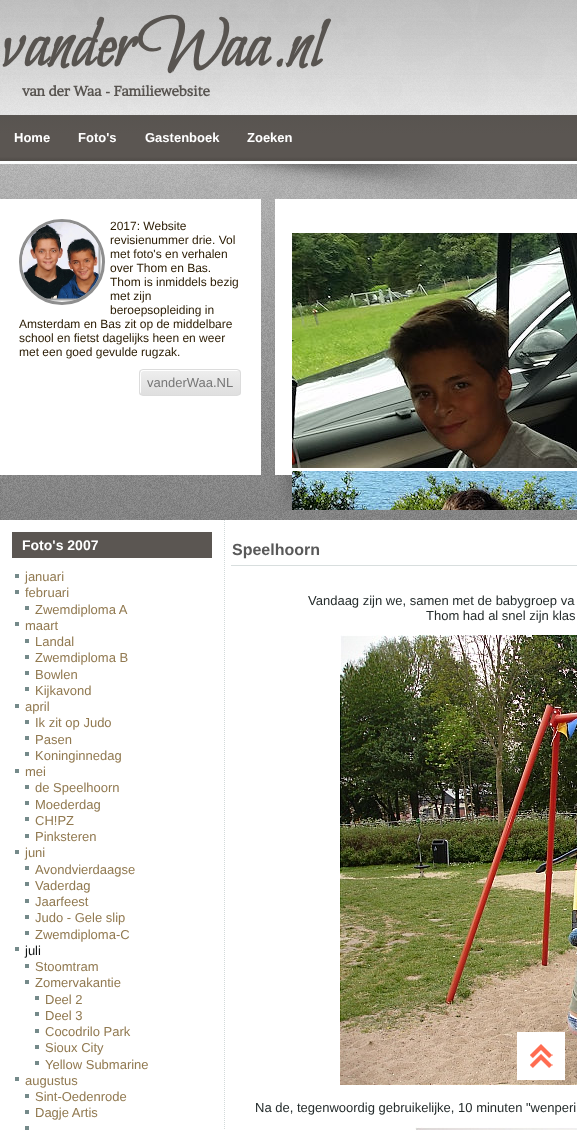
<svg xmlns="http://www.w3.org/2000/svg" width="577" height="1130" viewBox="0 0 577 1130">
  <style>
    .t1 { font: bold 72px Bilbo Swash Caps; fill: #585450; }
    .t2 { font: bold 14px Brawler; fill: #585450; }
    .t3 { font: bold 13px Liberation Sans; fill: #fff; }
    .t4 { font: 12px Liberation Sans; fill: #291a00; }
    .t5 { font: 13px Liberation Sans; fill: #777; }
    .t6 { font: bold 14px Liberation Sans; fill: #fff; }
    .t7 { font: 13px Liberation Sans; fill: #917950; }
    .t8 { font: 13px Liberation Sans; fill: #131616; }
    .t9 { font: bold 16px Liberation Sans; fill: #595959; }
    .t10 { font: 13px Liberation Sans; fill: #252c2c; }
  </style>
  <defs>
    <linearGradient id="g1" gradientUnits="userSpaceOnUse" x1="530" y1="115" x2="530" y2="164"><stop offset="0" stop-color="#585450"/><stop offset="0.4" stop-color="#5b5652"/><stop offset="0.85" stop-color="#5b5652"/><stop offset="1" stop-color="#484541"/></linearGradient>
    <clipPath id="clip1"><rect x="139" y="369" width="102" height="27" rx="4"/></clipPath>
    <linearGradient id="g2" gradientUnits="userSpaceOnUse" x1="140" y1="370" x2="140" y2="395"><stop offset="0.05" stop-color="#ededed"/><stop offset="1" stop-color="#dfdfdf"/></linearGradient>
  </defs>
  <rect width="100%" height="100%" fill="#fff"/>
  <image x="0" y="0" width="577" height="520" href="images/1.png"/>
  <image x="0" y="0" width="577" height="115" href="images/2.png"/>
  <text x="-1" y="66" class="t1">vanderWaa.nl</text>
  <text x="22" y="96" class="t2">van der Waa - Familiewebsite</text>
  <rect x="0" y="115" width="577" height="46" fill="url(#g1)"/>
  <rect x="0" y="161" width="577" height="3" fill="#fcfdfd"/>
  <text x="14" y="142" class="t3">Home</text>
  <text x="78" y="142" class="t3">Foto's</text>
  <text x="145" y="142" class="t3">Gastenboek</text>
  <text x="247" y="142" class="t3">Zoeken</text>
  <image x="190" y="164" width="387" height="35" href="images/3.png"/>
  <rect x="0" y="199" width="261" height="276" fill="#fff"/>
  <circle cx="62" cy="262" r="41.5" fill="none" stroke="#8e8e8e" stroke-width="3"/>
  <image x="22" y="222" width="80" height="80" href="images/4.png"/>
  <text x="110" y="230" class="t4">2017: Website</text>
  <text x="110" y="244" class="t4">revisienummer drie. Vol</text>
  <text x="110" y="258" class="t4">met foto's en verhalen</text>
  <text x="110" y="272" class="t4">over Thom en Bas.</text>
  <text x="110" y="286" class="t4">Thom is inmiddels bezig</text>
  <text x="110" y="300" class="t4">met zijn</text>
  <text x="110" y="314" class="t4">beroepsopleiding in</text>
  <text x="19" y="328" class="t4">Amsterdam en Bas zit op de middelbare</text>
  <text x="19" y="342" class="t4">school en fietst dagelijks heen en weer</text>
  <text x="19" y="356" class="t4">met een goed gevulde rugzak.</text>
  <g clip-path="url(#clip1)">
    <rect x="139" y="370" width="102" height="25" fill="url(#g2)"/>
  </g>
  <path d="M144 371H239L237 370H159C139 370 140 366 140 382C140 385 139 393 141 394V377C141 375 140 371 144 371Z" fill="#fff"/>
  <rect x="139.5" y="369.5" width="101" height="26" rx="3.5" fill="none" stroke="#dcdcdc"/>
  <text x="147" y="387" class="t5">vanderWaa.NL</text>
  <rect x="275" y="199" width="302" height="276" fill="#fff"/>
  <image x="278" y="475" width="14" height="35" href="images/5.png"/>
  <image x="292" y="233" width="285" height="235" href="images/6.png"/>
  <image x="292" y="471" width="285" height="39" href="images/7.png"/>
  <path d="M224.5 520V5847" fill="none" stroke="#d3dada" stroke-dasharray="1 1"/>
  <rect x="12" y="532" width="200" height="26" fill="#5b5652"/>
  <text x="22" y="550" class="t6">Foto's 2007</text>
  <rect x="15" y="574" width="4" height="4" fill="#758a8a"/>
  <text x="25" y="581" class="t7">januari</text>
  <rect x="15" y="590" width="4" height="4" fill="#758a8a"/>
  <text x="25" y="597" class="t7">februari</text>
  <rect x="25" y="606" width="4" height="4" fill="#758a8a"/>
  <text x="35" y="614" class="t7">Zwemdiploma A</text>
  <rect x="15" y="622" width="4" height="4" fill="#758a8a"/>
  <text x="25" y="630" class="t7">maart</text>
  <rect x="25" y="639" width="4" height="4" fill="#758a8a"/>
  <text x="35" y="646" class="t7">Landal</text>
  <rect x="25" y="655" width="4" height="4" fill="#758a8a"/>
  <text x="35" y="662" class="t7">Zwemdiploma B</text>
  <rect x="25" y="671" width="4" height="4" fill="#758a8a"/>
  <text x="35" y="679" class="t7">Bowlen</text>
  <rect x="25" y="687" width="4" height="4" fill="#758a8a"/>
  <text x="35" y="695" class="t7">Kijkavond</text>
  <rect x="15" y="704" width="4" height="4" fill="#758a8a"/>
  <text x="25" y="711" class="t7">april</text>
  <rect x="25" y="720" width="4" height="4" fill="#758a8a"/>
  <text x="35" y="727" class="t7">Ik zit op Judo</text>
  <rect x="25" y="736" width="4" height="4" fill="#758a8a"/>
  <text x="35" y="744" class="t7">Pasen</text>
  <rect x="25" y="752" width="4" height="4" fill="#758a8a"/>
  <text x="35" y="760" class="t7">Koninginnedag</text>
  <rect x="15" y="769" width="4" height="4" fill="#758a8a"/>
  <text x="25" y="776" class="t7">mei</text>
  <rect x="25" y="785" width="4" height="4" fill="#758a8a"/>
  <text x="35" y="792" class="t7">de Speelhoorn</text>
  <rect x="25" y="801" width="4" height="4" fill="#758a8a"/>
  <text x="35" y="809" class="t7">Moederdag</text>
  <rect x="25" y="817" width="4" height="4" fill="#758a8a"/>
  <text x="35" y="825" class="t7">CH!PZ</text>
  <rect x="25" y="834" width="4" height="4" fill="#758a8a"/>
  <text x="35" y="841" class="t7">Pinksteren</text>
  <rect x="15" y="850" width="4" height="4" fill="#758a8a"/>
  <text x="25" y="857" class="t7">juni</text>
  <rect x="25" y="866" width="4" height="4" fill="#758a8a"/>
  <text x="35" y="874" class="t7">Avondvierdaagse</text>
  <rect x="25" y="882" width="4" height="4" fill="#758a8a"/>
  <text x="35" y="890" class="t7">Vaderdag</text>
  <rect x="25" y="899" width="4" height="4" fill="#758a8a"/>
  <text x="35" y="906" class="t7">Jaarfeest</text>
  <rect x="25" y="915" width="4" height="4" fill="#758a8a"/>
  <text x="35" y="922" class="t7">Judo - Gele slip</text>
  <rect x="25" y="931" width="4" height="4" fill="#758a8a"/>
  <text x="35" y="939" class="t7">Zwemdiploma-C</text>
  <rect x="15" y="947" width="4" height="4" fill="#758a8a"/>
  <text x="25" y="955" class="t8">juli</text>
  <rect x="25" y="964" width="4" height="4" fill="#758a8a"/>
  <text x="35" y="971" class="t7">Stoomtram</text>
  <rect x="25" y="980" width="4" height="4" fill="#758a8a"/>
  <text x="35" y="987" class="t7">Zomervakantie</text>
  <rect x="35" y="996" width="4" height="4" fill="#758a8a"/>
  <text x="45" y="1004" class="t7">Deel 2</text>
  <rect x="35" y="1012" width="4" height="4" fill="#758a8a"/>
  <text x="45" y="1020" class="t7">Deel 3</text>
  <rect x="35" y="1029" width="4" height="4" fill="#758a8a"/>
  <text x="45" y="1036" class="t7">Cocodrilo Park</text>
  <rect x="35" y="1045" width="4" height="4" fill="#758a8a"/>
  <text x="45" y="1052" class="t7">Sioux City</text>
  <rect x="35" y="1061" width="4" height="4" fill="#758a8a"/>
  <text x="45" y="1069" class="t7">Yellow Submarine</text>
  <rect x="15" y="1077" width="4" height="4" fill="#758a8a"/>
  <text x="25" y="1085" class="t7">augustus</text>
  <rect x="25" y="1094" width="4" height="4" fill="#758a8a"/>
  <text x="35" y="1101" class="t7">Sint-Oedenrode</text>
  <rect x="25" y="1110" width="4" height="4" fill="#758a8a"/>
  <text x="35" y="1117" class="t7">Dagje Artis</text>
  <rect x="25" y="1126" width="4" height="4" fill="#758a8a"/>
  <rect x="231" y="565" width="346" height="1" fill="#d8dede"/>
  <text x="232" y="555" class="t9">Speelhoorn</text>
  <text x="308" y="605" class="t10">Vandaag zijn we, samen met de babygroep va</text>
  <text x="426" y="620" class="t10">Thom had al snel zijn klas</text>
  <image x="340" y="635" width="237" height="450" href="images/8.png"/>
  <text x="255" y="1112" class="t10">Na de, tegenwoordig gebruikelijke, 10 minuten "wenperi</text>
  <image x="415" y="1127" width="162" height="3" href="images/9.png"/>
  <rect x="517" y="1032" width="48" height="48" fill="#fff"/>
  <image x="530" y="1044" width="23" height="24" href="images/10.png"/>
</svg>
